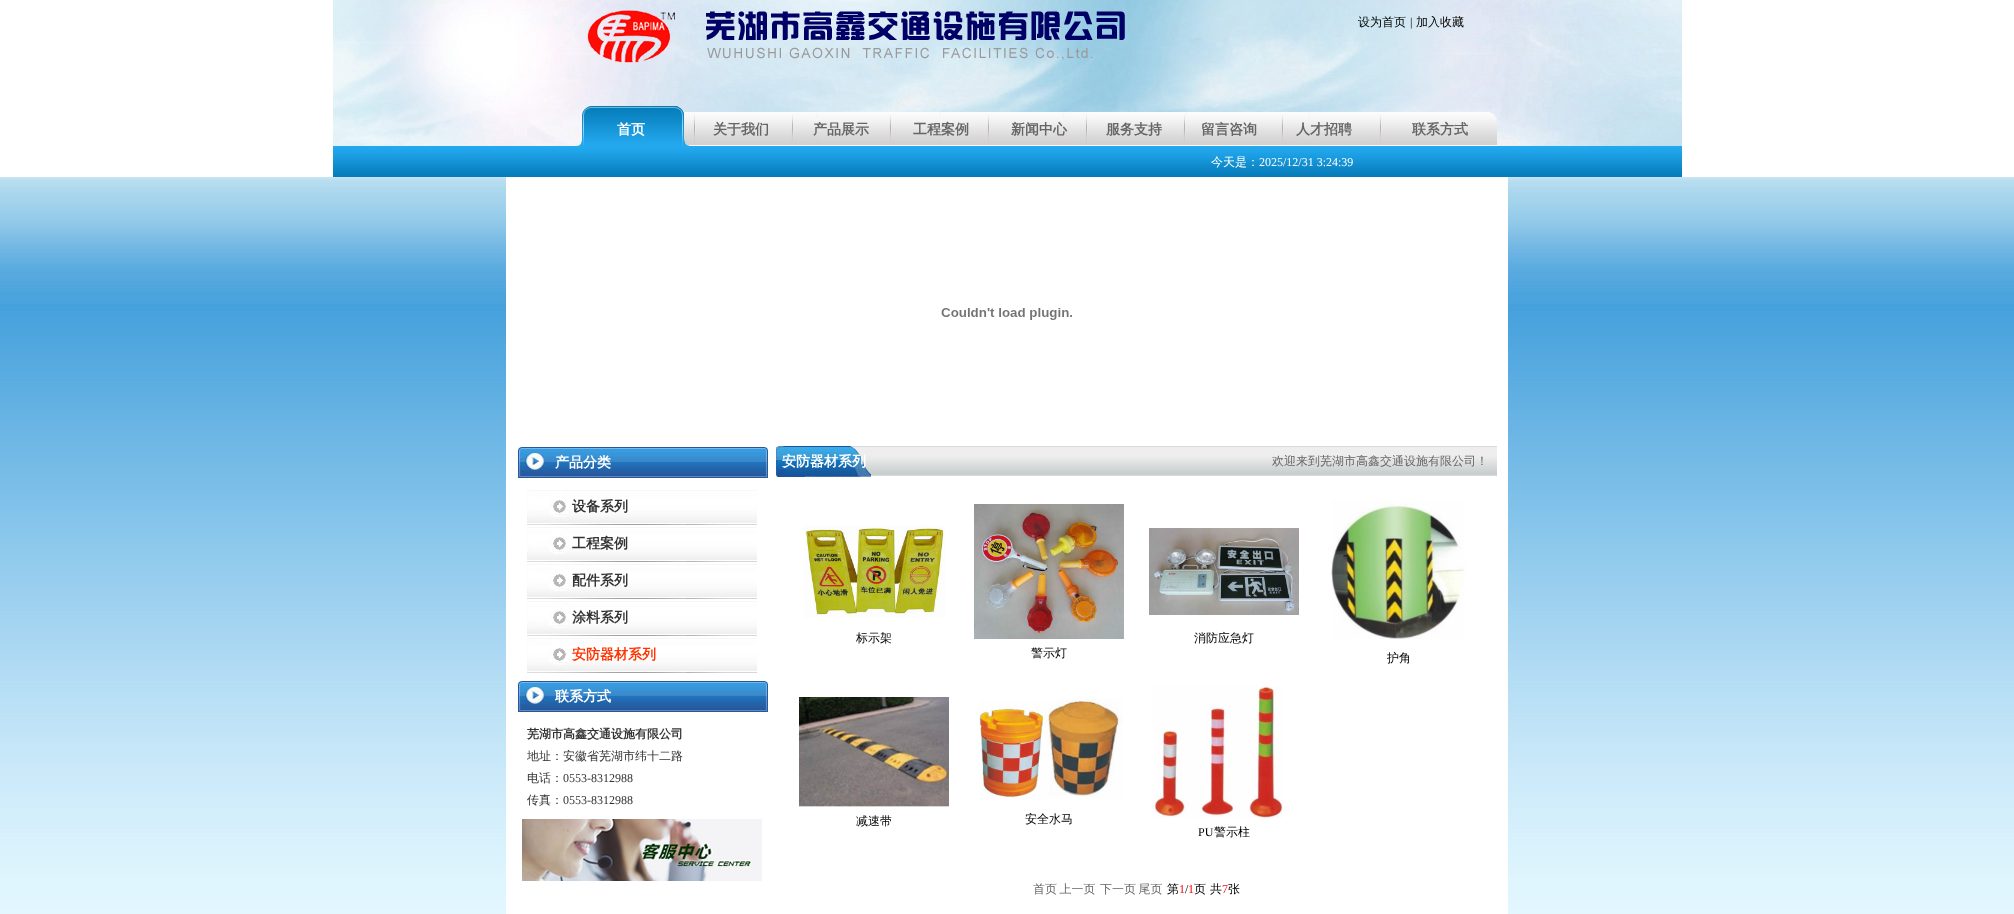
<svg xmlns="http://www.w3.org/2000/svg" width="2014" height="914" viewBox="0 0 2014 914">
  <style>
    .t1 { font: 500 12px WenQuanYi Zen Hei; fill: #000; }
    .t2 { font: 12px Liberation Serif; fill: #000; }
    .t3 { font: bold 14px WenQuanYi Zen Hei; fill: #fff; }
    .t4 { font: bold 14px WenQuanYi Zen Hei; fill: #666; }
    .t5 { font: 500 12px WenQuanYi Zen Hei; fill: #fff; }
    .t6 { font: 12px Liberation Serif; fill: #fff; }
    .t7 { font: bold 14px WenQuanYi Zen Hei; fill: #333; }
    .t8 { font: bold 14px WenQuanYi Zen Hei; fill: #f30; }
    .t9 { font: bold 12px WenQuanYi Zen Hei; fill: #333; }
    .t10 { font: 500 12px WenQuanYi Zen Hei; fill: #333; }
    .t11 { font: 12px Liberation Serif; fill: #333; }
    .t12 { font: 500 12px WenQuanYi Zen Hei; fill: #666; }
    .t13 { font: 12px Liberation Serif; fill: #f00; }
  </style>
  <rect width="100%" height="100%" fill="#fff"/>
  <image x="333" y="0" width="1349" height="177" href="images/1.png"/>
  <text x="1358" y="26" class="t1">设为首页</text>
  <text x="1410" y="26" class="t2">|</text>
  <text x="1416" y="26" class="t1">加入收藏</text>
  <text x="617" y="134" class="t3">首页</text>
  <text x="713" y="134" class="t4">关于我们</text>
  <text x="813" y="134" class="t4">产品展示</text>
  <text x="913" y="134" class="t4">工程案例</text>
  <text x="1011" y="134" class="t4">新闻中心</text>
  <text x="1106" y="134" class="t4">服务支持</text>
  <text x="1201" y="134" class="t4">留言咨询</text>
  <text x="1296" y="134" class="t4">人才招聘</text>
  <text x="1412" y="134" class="t4">联系方式</text>
  <text x="1211" y="166" class="t5">今天是：</text>
  <text x="1259" y="166" class="t6">2025/12/31 3:24:39</text>
  <image x="0" y="177" width="2014" height="737" href="images/2.png"/>
  <rect x="506" y="177" width="1002" height="737" fill="#fff"/>
  <image x="941" y="308" width="131" height="12" href="images/3.png"/>
  <image x="517" y="446" width="252" height="33" href="images/4.png"/>
  <text x="555" y="467" class="t3">产品分类</text>
  <image x="527" y="490" width="230" height="35" href="images/5.png"/>
  <text x="572" y="511" class="t7">设备系列</text>
  <image x="527" y="527" width="230" height="35" href="images/5.png"/>
  <text x="572" y="548" class="t7">工程案例</text>
  <image x="527" y="564" width="230" height="35" href="images/5.png"/>
  <text x="572" y="585" class="t7">配件系列</text>
  <image x="527" y="601" width="230" height="35" href="images/5.png"/>
  <text x="572" y="622" class="t7">涂料系列</text>
  <image x="527" y="638" width="230" height="35" href="images/5.png"/>
  <text x="572" y="659" class="t8">安防器材系列</text>
  <image x="517" y="680" width="252" height="33" href="images/4.png"/>
  <text x="555" y="701" class="t3">联系方式</text>
  <text x="527" y="738" class="t9">芜湖市高鑫交通设施有限公司</text>
  <text x="527" y="760" class="t10">地址：安徽省芜湖市纬十二路</text>
  <text x="527" y="782" class="t10">电话：</text>
  <text x="563" y="782" class="t11">0553-8312988</text>
  <text x="527" y="804" class="t10">传真：</text>
  <text x="563" y="804" class="t11">0553-8312988</text>
  <image x="522" y="819" width="240" height="62" href="images/6.png"/>
  <image x="776" y="446" width="95" height="31" href="images/7.png"/>
  <text x="782" y="466" class="t3">安防器材系列</text>
  <image x="871" y="446" width="626" height="30" href="images/8.png"/>
  <text x="1272" y="465" class="t12">欢迎来到芜湖市高鑫交通设施有限公司！</text>
  <image x="804" y="525" width="141" height="93" href="images/9.png"/>
  <text x="856" y="642" class="t1">标示架</text>
  <image x="1149" y="528" width="150" height="87" href="images/10.png"/>
  <text x="1194" y="642" class="t1">消防应急灯</text>
  <image x="974" y="504" width="150" height="135" href="images/11.png"/>
  <text x="1031" y="657" class="t1">警示灯</text>
  <image x="1331" y="499" width="134" height="140" href="images/12.png"/>
  <text x="1387" y="662" class="t1">护角</text>
  <image x="799" y="697" width="150" height="110" href="images/13.png"/>
  <text x="856" y="825" class="t1">减速带</text>
  <image x="979" y="699" width="144" height="100" href="images/14.png"/>
  <text x="1025" y="823" class="t1">安全水马</text>
  <image x="1153" y="686" width="131" height="132" href="images/15.png"/>
  <text x="1198" y="836" class="t2">PU</text>
  <text x="1214" y="836" class="t1">警示柱</text>
  <text x="1033" y="893" word-spacing="-1" class="t12">首页 上一页</text>
  <text x="1100" y="893" word-spacing="-1" class="t12">下一页 尾页</text>
  <text x="1167" y="893" class="t1">第</text>
  <text x="1179" y="893" class="t13">1</text>
  <text x="1185" y="893" class="t2">/</text>
  <text x="1188" y="893" class="t13">1</text>
  <text x="1194" y="893" class="t1">页</text>
  <text x="1210" y="893" class="t1">共</text>
  <text x="1222" y="893" class="t13">7</text>
  <text x="1228" y="893" class="t1">张</text>
</svg>
